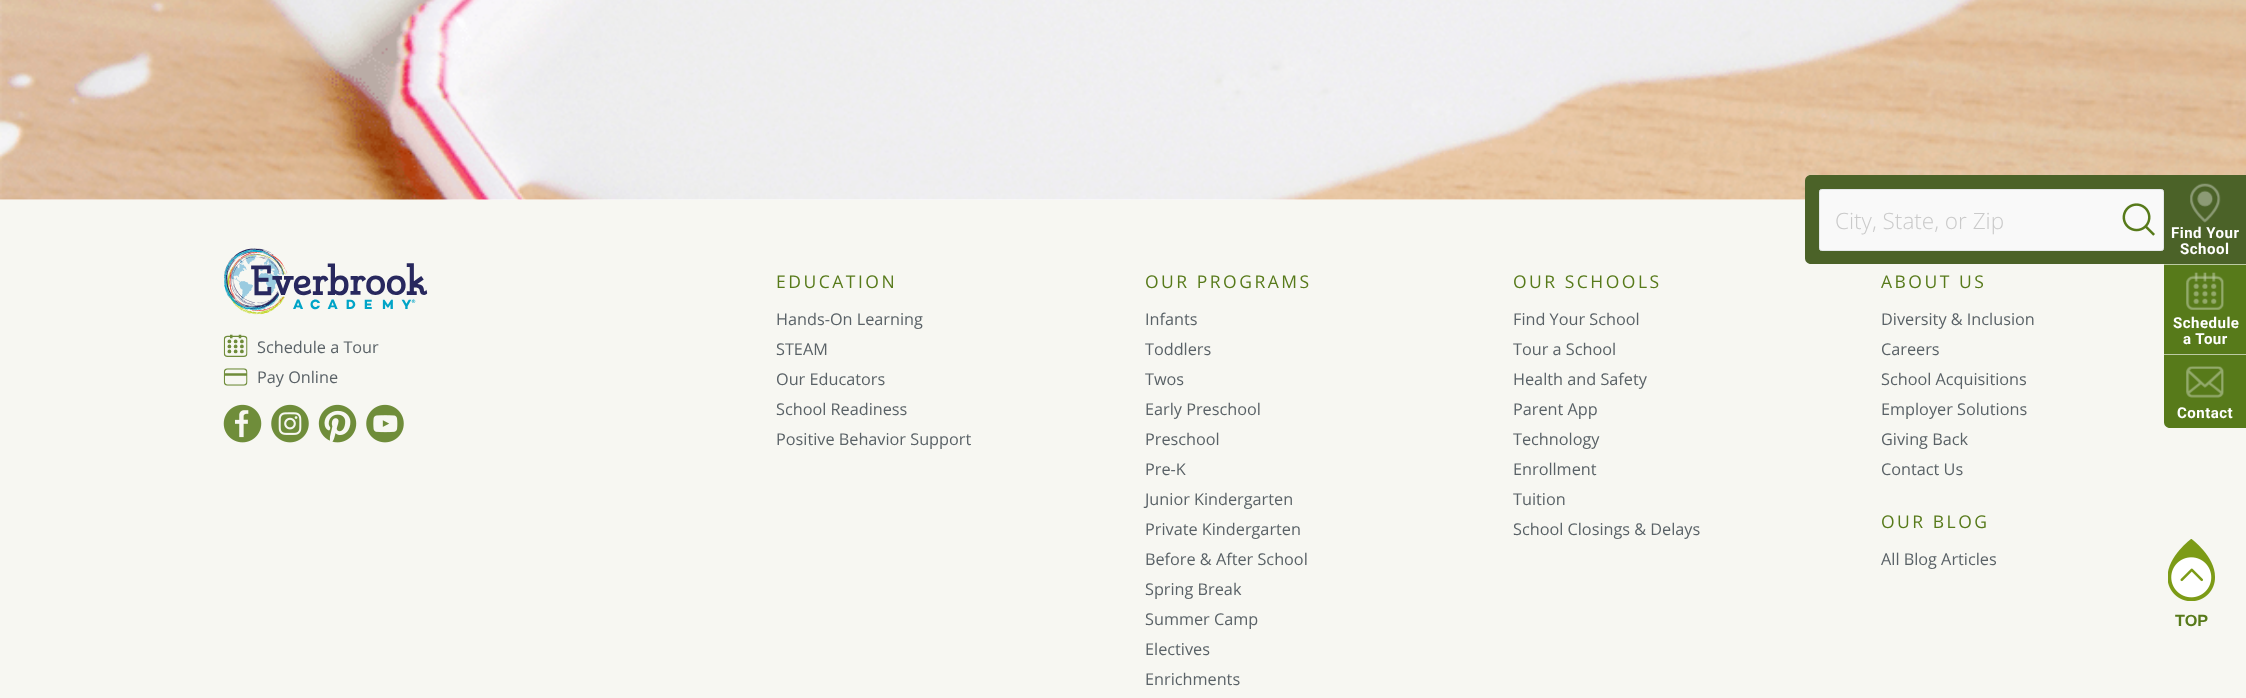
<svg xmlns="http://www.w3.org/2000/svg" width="2246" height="698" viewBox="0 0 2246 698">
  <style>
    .t1 { font: 300 22.5px Open Sans; fill: #cacaca; }
    .t2 { font: bold 15px Roboto; letter-spacing: 0.5px; fill: #fff; }
    .t3 { font: 16.25px Open Sans; fill: #5a6267; }
    .t4 { font: 17.5px Open Sans; letter-spacing: 2.5px; fill: #577a1a; }
    .t5 { font: bold 16.25px Liberation Sans; fill: #577a1a; }
  </style>
  <rect width="100%" height="100%" fill="#fff"/>
  <image x="0" y="0" width="2246" height="200" href="images/5.png"/>
  <rect x="0" y="200" width="2246" height="498" fill="#f7f7f2"/>
  <path d="M1811 175H2246V264H1811C1807.5 264 1805 261.5 1805 258V181C1805 177.5 1807.5 175 1811 175Z" fill="#4b6228"/>
  <rect x="1819.5" y="189.5" width="344" height="61" rx="2" fill="#f9f9f9" stroke="#e4e7e9"/>
  <text x="1835" y="229" class="t1">City, State, or Zip</text>
  <image x="2122" y="203" width="33" height="33" href="images/1.png"/>
  <image x="2190" y="183" width="31" height="40" href="images/2.png"/>
  <text x="2171" y="238" class="t2">Find Your</text>
  <text x="2180" y="254" class="t2">School</text>
  <rect x="2164" y="265" width="82" height="89" fill="#577a1a"/>
  <rect x="2164" y="264" width="82" height="1" fill="#bccaa3"/>
  <image x="2186" y="272" width="38" height="38" href="images/3.png"/>
  <text x="2173" y="328" class="t2">Schedule</text>
  <text x="2183" y="344" class="t2">a Tour</text>
  <path d="M2164 354H2246V428H2170C2166.5 428 2164 425.5 2164 422Z" fill="#577a1a"/>
  <rect x="2164" y="354" width="82" height="1" fill="#bccaa3"/>
  <image x="2186" y="366" width="38" height="32" href="images/4.png"/>
  <text x="2177" y="418" class="t2">Contact</text>
  <image x="224" y="248" width="204" height="67" href="images/6.png"/>
  <image x="223" y="334" width="25" height="23" href="images/7.png"/>
  <text x="257" y="353" class="t3">Schedule a Tour</text>
  <image x="223" y="368" width="25" height="18" href="images/8.png"/>
  <text x="257" y="383" class="t3">Pay Online</text>
  <image x="223" y="404" width="39" height="39" href="images/9.png"/>
  <image x="271" y="404" width="38" height="39" href="images/10.png"/>
  <image x="318" y="404" width="39" height="39" href="images/11.png"/>
  <image x="366" y="404" width="38" height="39" href="images/12.png"/>
  <text x="776" y="288" class="t4">EDUCATION</text>
  <text x="776" y="325" class="t3">Hands-On Learning</text>
  <text x="776" y="355" class="t3">STEAM</text>
  <text x="776" y="385" class="t3">Our Educators</text>
  <text x="776" y="415" class="t3">School Readiness</text>
  <text x="776" y="445" class="t3">Positive Behavior Support</text>
  <text x="1145" y="288" class="t4">OUR PROGRAMS</text>
  <text x="1145" y="325" class="t3">Infants</text>
  <text x="1145" y="355" class="t3">Toddlers</text>
  <text x="1145" y="385" class="t3">Twos</text>
  <text x="1145" y="415" class="t3">Early Preschool</text>
  <text x="1145" y="445" class="t3">Preschool</text>
  <text x="1145" y="475" class="t3">Pre-K</text>
  <text x="1145" y="505" class="t3">Junior Kindergarten</text>
  <text x="1145" y="535" class="t3">Private Kindergarten</text>
  <text x="1145" y="565" class="t3">Before &amp; After School</text>
  <text x="1145" y="595" class="t3">Spring Break</text>
  <text x="1145" y="625" class="t3">Summer Camp</text>
  <text x="1145" y="655" class="t3">Electives</text>
  <text x="1145" y="685" class="t3">Enrichments</text>
  <text x="1513" y="288" class="t4">OUR SCHOOLS</text>
  <text x="1513" y="325" class="t3">Find Your School</text>
  <text x="1513" y="355" class="t3">Tour a School</text>
  <text x="1513" y="385" class="t3">Health and Safety</text>
  <text x="1513" y="415" class="t3">Parent App</text>
  <text x="1513" y="445" class="t3">Technology</text>
  <text x="1513" y="475" class="t3">Enrollment</text>
  <text x="1513" y="505" class="t3">Tuition</text>
  <text x="1513" y="535" class="t3">School Closings &amp; Delays</text>
  <text x="1881" y="288" class="t4">ABOUT US</text>
  <text x="1881" y="325" class="t3">Diversity &amp; Inclusion</text>
  <text x="1881" y="355" class="t3">Careers</text>
  <text x="1881" y="385" class="t3">School Acquisitions</text>
  <text x="1881" y="415" class="t3">Employer Solutions</text>
  <text x="1881" y="445" class="t3">Giving Back</text>
  <text x="1881" y="475" class="t3">Contact Us</text>
  <text x="1881" y="528" class="t4">OUR BLOG</text>
  <text x="1881" y="565" class="t3">All Blog Articles</text>
  <image x="2168" y="539" width="47" height="62" href="images/13.png"/>
  <text x="2175" y="626" class="t5">TOP</text>
</svg>
